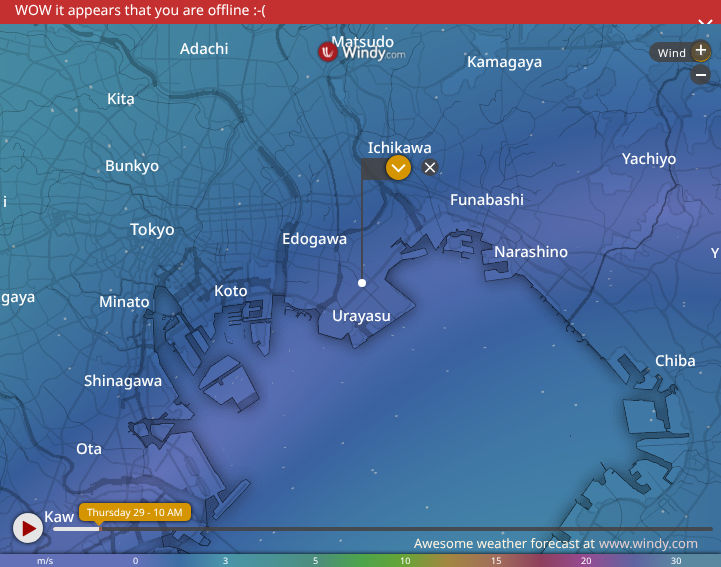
<svg xmlns="http://www.w3.org/2000/svg" width="721" height="567" viewBox="0 0 721 567">
  <style>
    .t1 { font: 14px Noto Sans; fill: #fff; }
    .t2 { font: 500 15px Noto Sans; fill: #fff; }
    .t3 { font: 500 16px Noto Sans; fill: #fff; }
    .t4 { font: 500 14px Noto Sans; fill: #fff; }
    .t5 { font: 11px Noto Sans; letter-spacing: 0.5px; fill: #fff; }
    .t6 { font: 10px Noto Sans; fill: #fff; }
    .t7 { font: 13px Noto Sans; fill: #fff3e1; }
    .t8 { font: 13px Noto Sans; fill: #e6cece; }
    .t9 { font: 9px Noto Sans; fill: #fff; }
  </style>
  <defs>
    <linearGradient id="g1" gradientUnits="userSpaceOnUse" x1="0" y1="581" x2="721" y2="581"><stop offset="0" stop-color="#6271b8"/><stop offset="0.19" stop-color="#6271b8"/><stop offset="0.25" stop-color="#3d6ea3"/><stop offset="0.31" stop-color="#4a94aa"/><stop offset="0.38" stop-color="#4a9294"/><stop offset="0.44" stop-color="#4d8e7c"/><stop offset="0.5" stop-color="#4ca44c"/><stop offset="0.56" stop-color="#67a436"/><stop offset="0.62" stop-color="#a28740"/><stop offset="0.69" stop-color="#a26d5c"/><stop offset="0.75" stop-color="#8d3f5c"/><stop offset="0.81" stop-color="#974b91"/><stop offset="0.88" stop-color="#5f64a0"/><stop offset="0.94" stop-color="#5b88a1"/><stop offset="1" stop-color="#5b88a1"/></linearGradient>
  </defs>
  <rect width="100%" height="100%" fill="#fff"/>
  <rect x="0" y="0" width="721" height="24" fill="#c42f2f"/>
  <text x="15" y="15" class="t1">WOW it appears that you are offline :-(</text>
  <image x="698" y="19" width="15" height="5" href="images/1.png"/>
  <image x="0" y="24" width="134" height="92" href="images/2.png"/>
  <image x="134" y="24" width="256" height="92" href="images/3.png"/>
  <image x="390" y="24" width="256" height="92" href="images/4.png"/>
  <image x="646" y="24" width="75" height="92" href="images/5.png"/>
  <image x="0" y="116" width="134" height="256" href="images/6.png"/>
  <image x="134" y="116" width="256" height="256" href="images/7.png"/>
  <image x="390" y="116" width="256" height="256" href="images/8.png"/>
  <image x="646" y="116" width="75" height="256" href="images/9.png"/>
  <image x="0" y="372" width="134" height="182" href="images/10.png"/>
  <image x="134" y="372" width="256" height="182" href="images/11.png"/>
  <image x="390" y="372" width="256" height="182" href="images/12.png"/>
  <image x="646" y="372" width="75" height="182" href="images/13.png"/>
  <image x="4" y="27" width="706" height="521" href="images/26.png"/>
  <image x="0" y="24" width="134" height="92" href="images/14.png"/>
  <image x="134" y="24" width="256" height="92" href="images/15.png"/>
  <image x="390" y="24" width="256" height="92" href="images/16.png"/>
  <image x="646" y="24" width="75" height="92" href="images/17.png"/>
  <image x="0" y="116" width="134" height="256" href="images/18.png"/>
  <image x="134" y="116" width="256" height="256" href="images/19.png"/>
  <image x="390" y="116" width="256" height="256" href="images/20.png"/>
  <image x="646" y="116" width="75" height="256" href="images/21.png"/>
  <image x="0" y="372" width="134" height="182" href="images/22.png"/>
  <image x="134" y="372" width="134" height="182" href="images/23.png"/>
  <image x="530" y="372" width="116" height="182" href="images/24.png"/>
  <image x="646" y="372" width="75" height="182" href="images/25.png"/>
  <text x="180" y="54" class="t2">Adachi</text>
  <text x="331" y="47" class="t2">Matsudo</text>
  <text x="467" y="67" class="t2">Kamagaya</text>
  <text x="107" y="104" class="t2">Kita</text>
  <text x="105" y="171" class="t2">Bunkyo</text>
  <text x="3" y="207" class="t2">i</text>
  <text x="1" y="302" class="t2">gaya</text>
  <text x="99" y="307" class="t2">Minato</text>
  <text x="130" y="235" class="t3">Tokyo</text>
  <text x="282" y="244" class="t2">Edogawa</text>
  <text x="214" y="296" class="t2">Koto</text>
  <text x="332" y="321" class="t2">Urayasu</text>
  <text x="368" y="153" class="t2">Ichikawa</text>
  <text x="450" y="205" class="t2">Funabashi</text>
  <text x="494" y="257" class="t2">Narashino</text>
  <text x="622" y="164" class="t2">Yachiyo</text>
  <text x="711" y="258" class="t4">Y</text>
  <text x="655" y="366" class="t2">Chiba</text>
  <text x="84" y="386" class="t2">Shinagawa</text>
  <text x="76" y="454" class="t2">Ota</text>
  <text x="44" y="522" class="t2">Kaw</text>
  <rect x="361" y="158" width="2" height="125" fill="#444141d6"/>
  <circle cx="362" cy="283" r="4" fill="#fff"/>
  <path d="M363 158H392C398 158 403 163 403 169C403 175 398 180 392 180H363Z" fill="#444141d6"/>
  <rect x="386" y="155" width="25" height="25" rx="12.5" fill="#000" filter="blur(2px)"/>
  <circle cx="398.5" cy="167.5" r="12.5" fill="#d49500"/>
  <image x="391" y="164" width="15" height="9" href="images/27.png"/>
  <circle cx="430" cy="167" r="9" fill="#444141d6"/>
  <image x="424" y="162" width="12" height="11" href="images/28.png"/>
  <image x="316" y="40" width="24" height="24" href="images/29.png"/>
  <image x="341" y="44" width="66" height="19" href="images/30.png"/>
  <rect x="649" y="42" width="62" height="20" rx="10" fill="#444141d6"/>
  <text x="658" y="57" class="t5">Wind</text>
  <rect x="691" y="42" width="20" height="20" rx="10" fill="#000" filter="blur(1px)"/>
  <circle cx="701" cy="52" r="10" fill="#d49500"/>
  <image x="695" y="50" width="11" height="7" href="images/31.png"/>
  <rect x="690" y="39" width="21" height="22" rx="10.5" fill="#444141d6"/>
  <image x="695" y="44" width="12" height="11" href="images/32.png"/>
  <circle cx="700.5" cy="74.5" r="10.5" fill="#444141d6"/>
  <rect x="696" y="74" width="10" height="2" fill="#fff"/>
  <rect x="13" y="513" width="30" height="30" rx="15" fill="#000" filter="blur(2px)"/>
  <circle cx="28" cy="528" r="15" fill="#e5e5e5"/>
  <image x="22" y="520" width="15" height="17" href="images/33.png"/>
  <rect x="79" y="503" width="112" height="18" rx="5" fill="#000" filter="blur(2px)"/>
  <rect x="79" y="503" width="112" height="18" rx="5" fill="#d49500"/>
  <text x="87" y="516" class="t6">Thursday 29 - 10 AM</text>
  <path d="M94 521H104L99 526Z" fill="#d49500"/>
  <rect x="53" y="527" width="660" height="4" rx="2" fill="#444141d6"/>
  <path d="M55 527H99V531H55C54 531 53 530 53 529C53 528 54 527 55 527Z" fill="#e5e5e5"/>
  <rect x="99" y="527" width="3" height="4" fill="#946051"/>
  <rect x="0" y="554" width="721" height="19" fill="#000" filter="blur(2px)"/>
  <text x="414" y="548" class="t7">Awesome weather forecast at</text>
  <text x="599" y="548" class="t8">www.windy.com</text>
  <rect x="0" y="554" width="721" height="13" fill="url(#g1)"/>
  <text x="37" y="564" class="t9">m/s</text>
  <text x="133" y="564" class="t9">0</text>
  <text x="223" y="564" class="t9">3</text>
  <text x="313" y="564" class="t9">5</text>
  <text x="400" y="564" class="t9">10</text>
  <text x="491" y="564" class="t9">15</text>
  <text x="581" y="564" class="t9">20</text>
  <text x="671" y="564" class="t9">30</text>
</svg>
